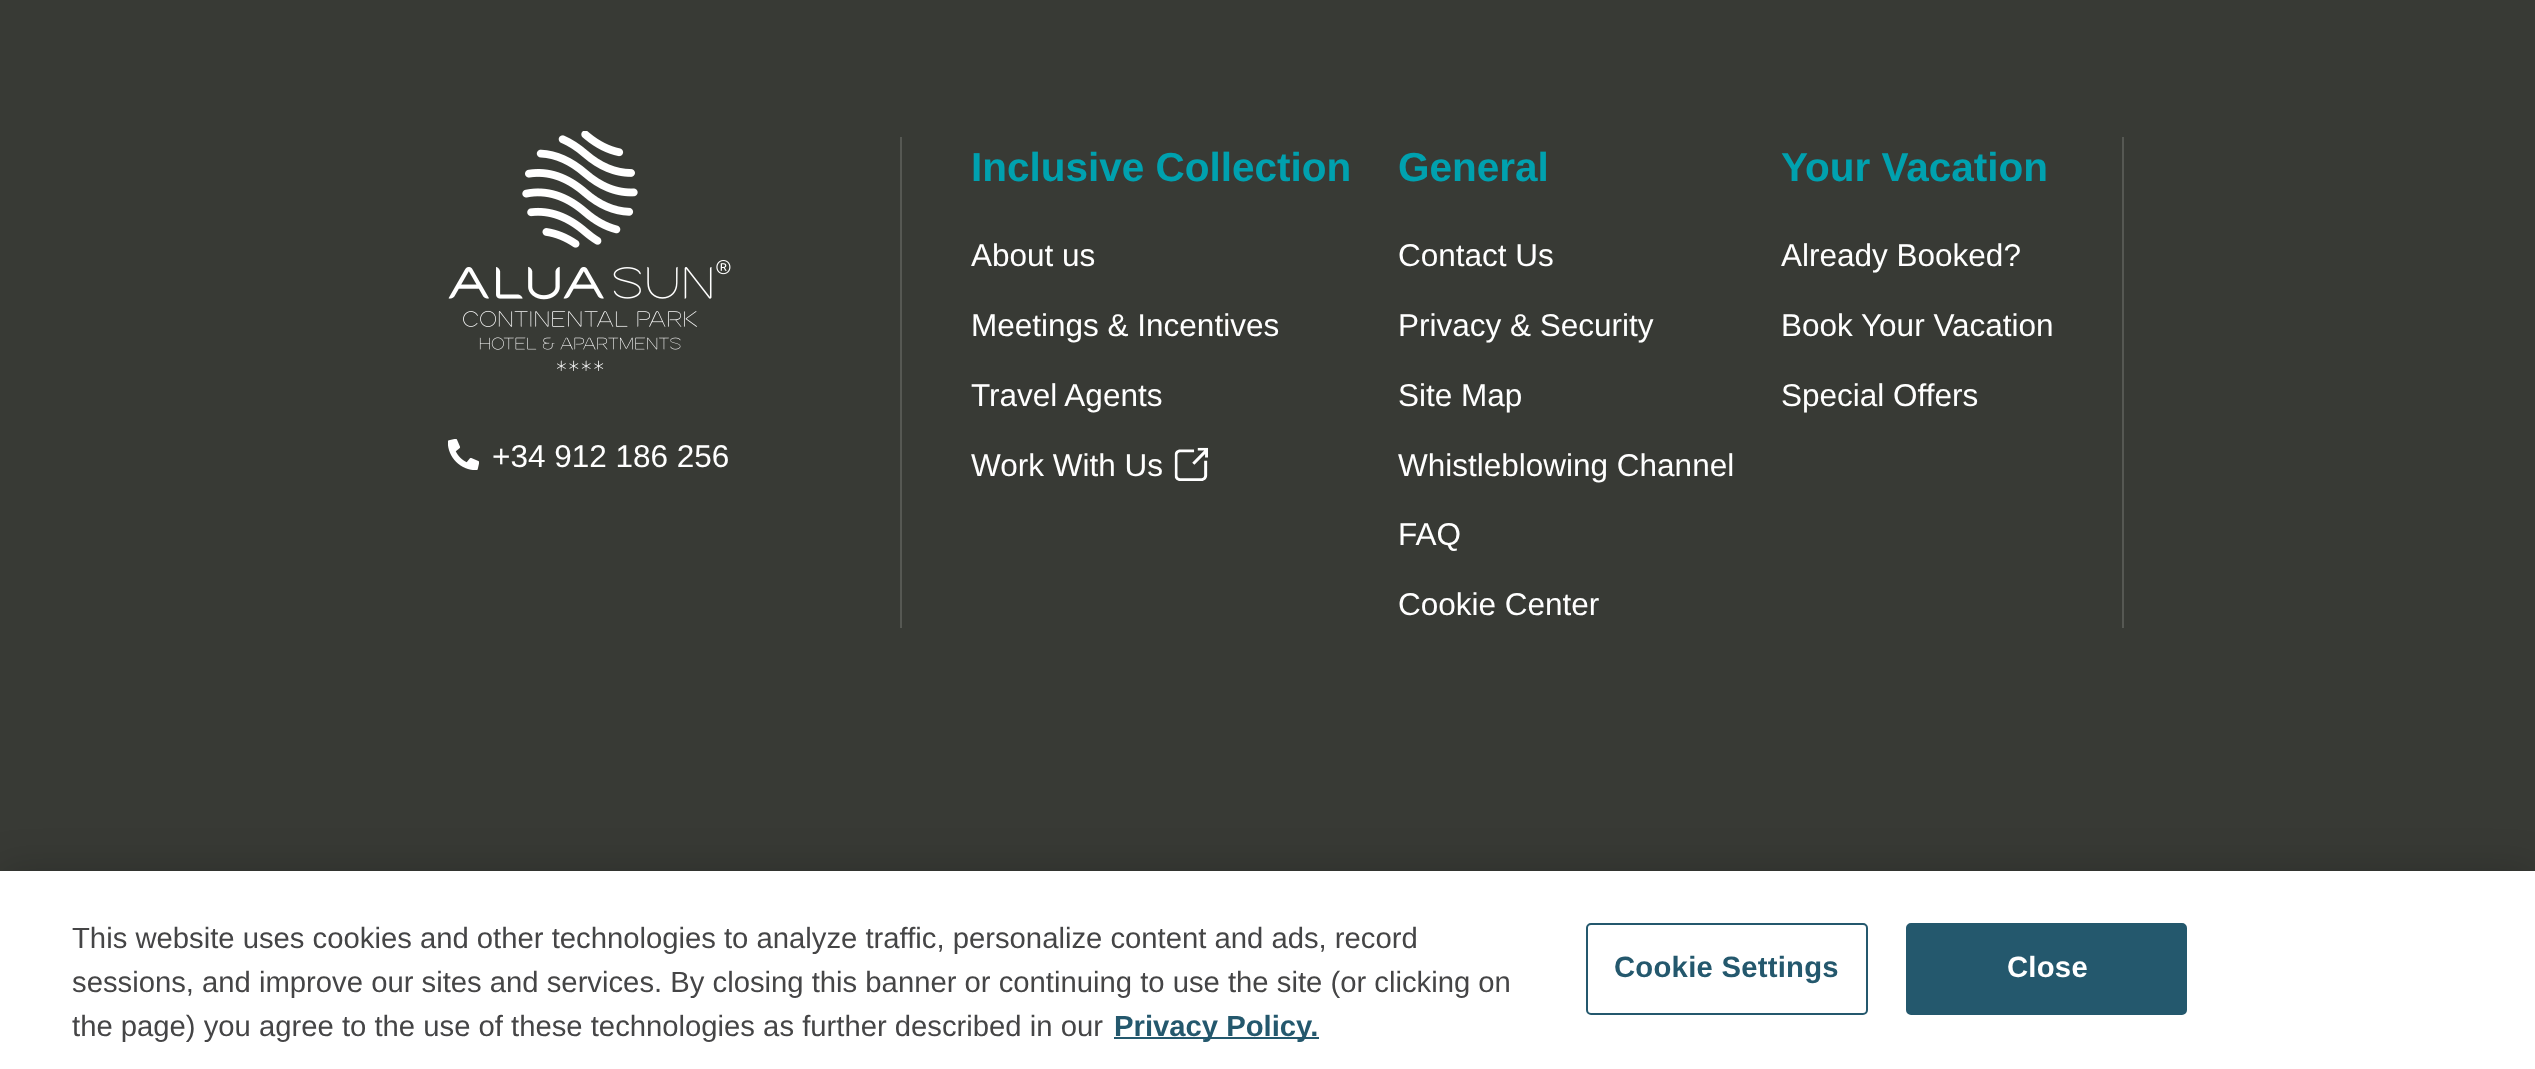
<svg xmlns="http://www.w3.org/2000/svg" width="2535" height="1069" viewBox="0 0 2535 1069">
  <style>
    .t1 { font: 31.5px Liberation Sans; fill: #fff; }
    .t2 { font: bold 40.5px Liberation Sans; fill: #00a1af; }
    .t3 { font: 29.25px Liberation Sans; fill: #454546; }
    .t4 { font: bold 29.25px Liberation Sans; fill: #24586d; }
    .t5 { font: bold 29.25px Liberation Sans; letter-spacing: 0.25px; fill: #24586d; }
    .t6 { font: bold 29.25px Liberation Sans; letter-spacing: 0.25px; fill: #fff; }
  </style>
  <rect width="100%" height="100%" fill="#383a35"/>
  <image x="448" y="131" width="283" height="240" href="images/1.png"/>
  <image x="448" y="439" width="31" height="31" href="images/2.png"/>
  <text x="492" y="467" class="t1">+34 912 186 256</text>
  <rect x="2122" y="137" width="2" height="491" fill="#565853"/>
  <rect x="900" y="137" width="2" height="491" fill="#565853"/>
  <text x="971" y="181" class="t2">Inclusive Collection</text>
  <text x="971" y="266" class="t1">About us</text>
  <text x="971" y="336" class="t1">Meetings &amp; Incentives</text>
  <text x="971" y="406" class="t1">Travel Agents</text>
  <text x="971" y="476" class="t1">Work With Us</text>
  <image x="1174" y="447" width="34" height="34" href="images/3.png"/>
  <text x="1398" y="181" class="t2">General</text>
  <text x="1398" y="266" class="t1">Contact Us</text>
  <text x="1398" y="336" class="t1">Privacy &amp; Security</text>
  <text x="1398" y="406" class="t1">Site Map</text>
  <text x="1398" y="476" class="t1">Whistleblowing Channel</text>
  <text x="1398" y="545" class="t1">FAQ</text>
  <text x="1398" y="615" class="t1">Cookie Center</text>
  <text x="1781" y="181" class="t2">Your Vacation</text>
  <text x="1781" y="266" class="t1">Already Booked?</text>
  <text x="1781" y="336" class="t1">Book Your Vacation</text>
  <text x="1781" y="406" class="t1">Special Offers</text>
  <rect x="0" y="871" width="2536" height="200" fill="#00000033" filter="blur(20px)"/>
  <rect x="0" y="871" width="2535" height="198" fill="#fff"/>
  <text x="72" y="948" class="t3">This website uses cookies and other technologies to analyze traffic, personalize content and ads, record</text>
  <text x="72" y="992" class="t3">sessions, and improve our sites and services. By closing this banner or continuing to use the site (or clicking on</text>
  <text x="72" y="1036" class="t3">the page) you agree to the use of these technologies as further described in our</text>
  <rect x="1114" y="1037" width="205" height="2" fill="#24586d"/>
  <text x="1114" y="1036" class="t4">Privacy Policy.</text>
  <rect x="1587" y="924" width="280" height="90" rx="4" fill="none" stroke="#24586d" stroke-width="2"/>
  <text x="1614" y="977" class="t5">Cookie Settings</text>
  <rect x="1907" y="924" width="279" height="90" rx="4" fill="#24586d" stroke="#24586d" stroke-width="2"/>
  <text x="2007" y="977" class="t6">Close</text>
</svg>
